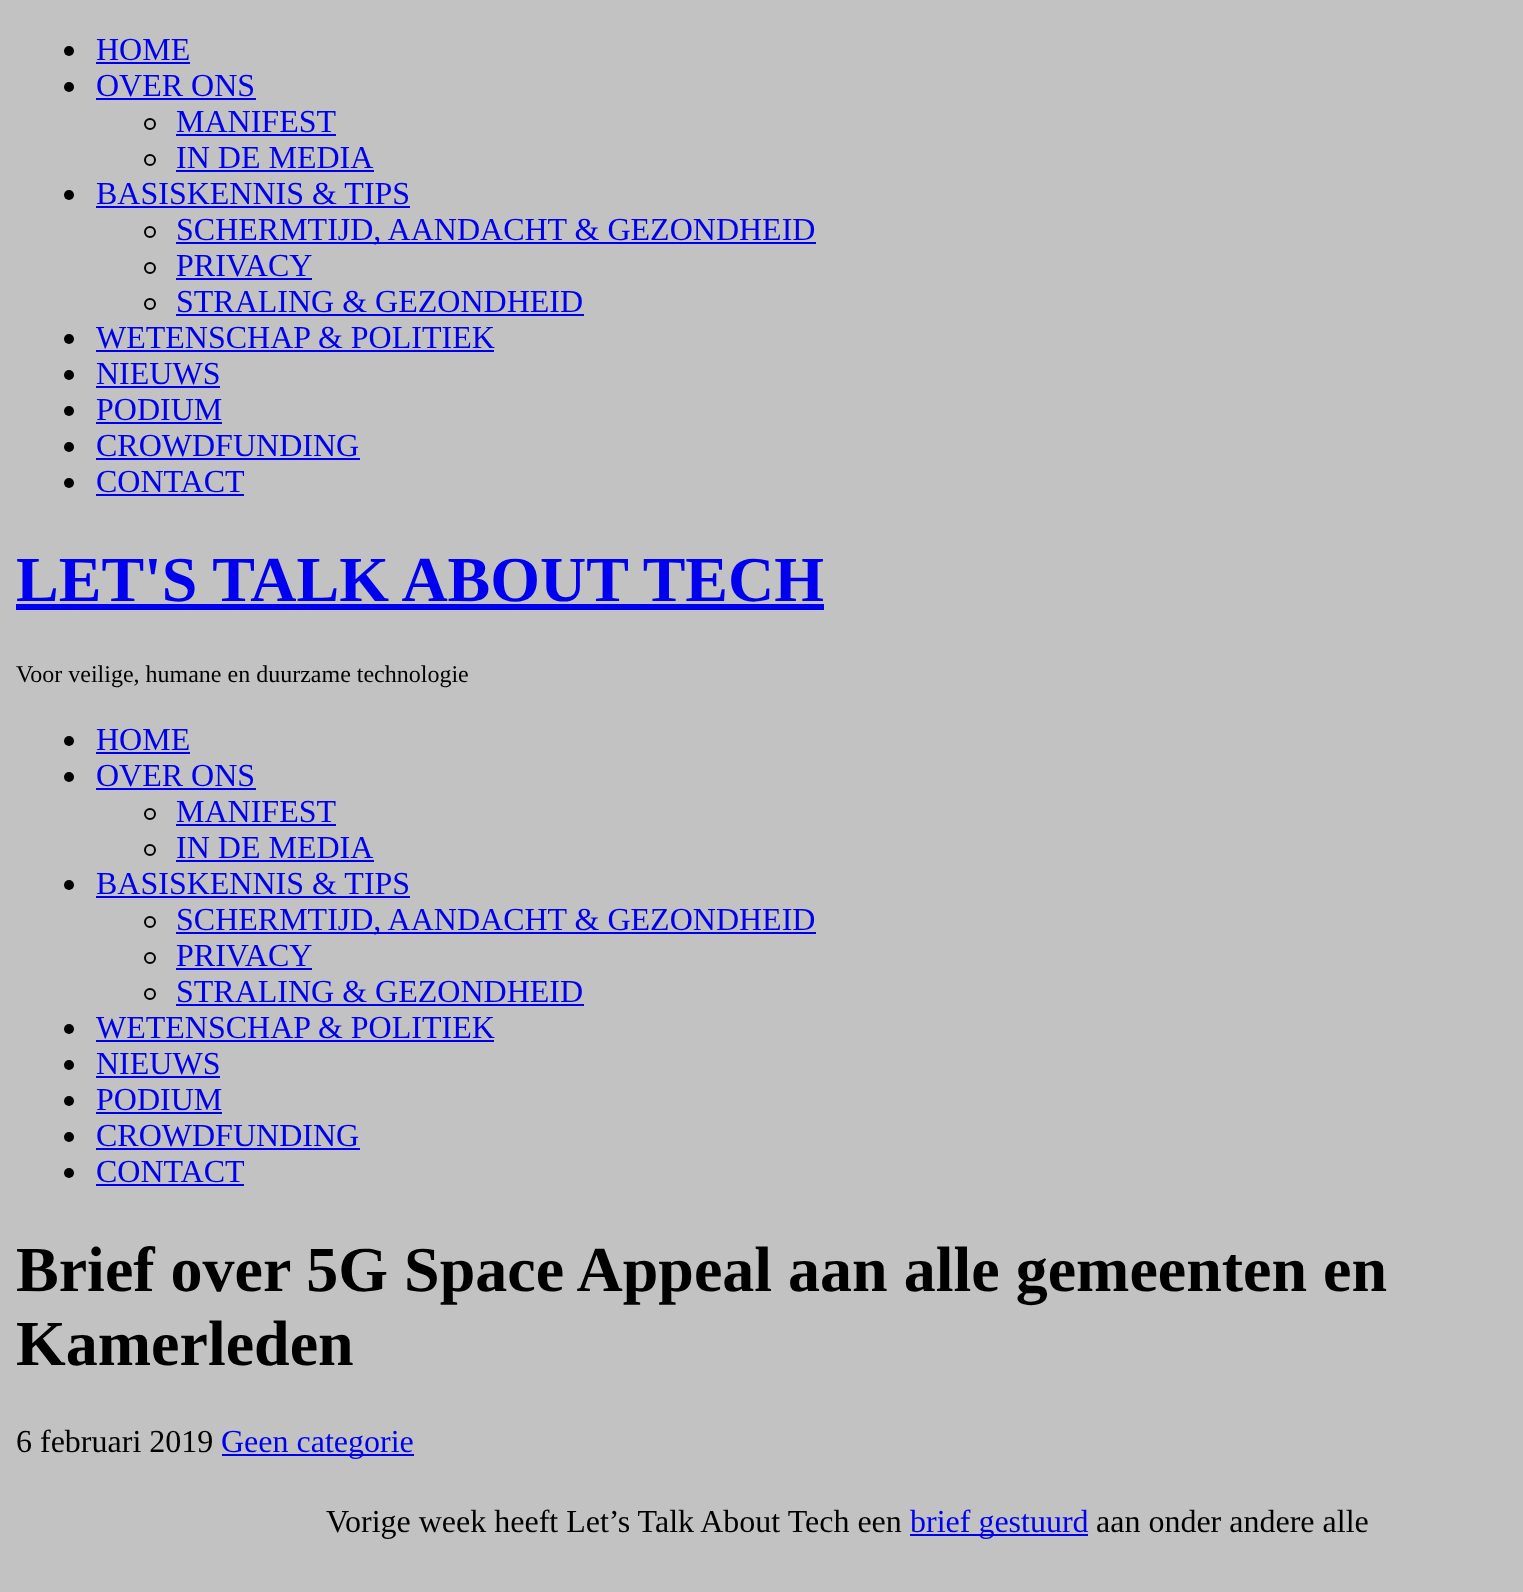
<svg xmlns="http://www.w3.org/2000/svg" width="1523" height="1592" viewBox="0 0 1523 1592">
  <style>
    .t1 { font: 32px Liberation Serif; fill: #00e; }
    .t2 { font: bold 64px Liberation Serif; fill: #00e; }
    .t3 { font: 24px Liberation Serif; fill: #000; }
    .t4 { font: bold 64px Liberation Serif; fill: #000; }
    .t5 { font: 32px Liberation Serif; fill: #000; }
  </style>
  <rect width="100%" height="100%" fill="#c2c2c2"/>
  <circle cx="69" cy="51" r="5" fill="#000"/>
  <text x="96" y="60" class="t1">HOME</text>
  <rect x="96" y="62" width="94" height="2" fill="#00e"/>
  <circle cx="69" cy="87" r="5" fill="#000"/>
  <text x="96" y="96" class="t1">OVER ONS</text>
  <rect x="96" y="98" width="160" height="2" fill="#00e"/>
  <circle cx="150" cy="124" r="5" fill="none" stroke="#000" stroke-width="2"/>
  <text x="176" y="132" class="t1">MANIFEST</text>
  <rect x="176" y="134" width="160" height="2" fill="#00e"/>
  <circle cx="150" cy="160" r="5" fill="none" stroke="#000" stroke-width="2"/>
  <text x="176" y="168" class="t1">IN DE MEDIA</text>
  <rect x="176" y="170" width="198" height="2" fill="#00e"/>
  <circle cx="69" cy="195" r="5" fill="#000"/>
  <text x="96" y="204" class="t1">BASISKENNIS &amp; TIPS</text>
  <rect x="96" y="206" width="314" height="2" fill="#00e"/>
  <circle cx="150" cy="232" r="5" fill="none" stroke="#000" stroke-width="2"/>
  <rect x="176" y="242" width="640" height="2" fill="#00e"/>
  <text x="176" y="240" class="t1">SCHERMTIJD, AANDACHT &amp; GEZONDHEID</text>
  <circle cx="150" cy="268" r="5" fill="none" stroke="#000" stroke-width="2"/>
  <text x="176" y="276" class="t1">PRIVACY</text>
  <rect x="176" y="278" width="136" height="2" fill="#00e"/>
  <circle cx="150" cy="304" r="5" fill="none" stroke="#000" stroke-width="2"/>
  <text x="176" y="312" class="t1">STRALING &amp; GEZONDHEID</text>
  <rect x="176" y="314" width="408" height="2" fill="#00e"/>
  <circle cx="69" cy="339" r="5" fill="#000"/>
  <text x="96" y="348" class="t1">WETENSCHAP &amp; POLITIEK</text>
  <rect x="96" y="350" width="398" height="2" fill="#00e"/>
  <circle cx="69" cy="375" r="5" fill="#000"/>
  <text x="96" y="384" class="t1">NIEUWS</text>
  <rect x="96" y="386" width="124" height="2" fill="#00e"/>
  <circle cx="69" cy="411" r="5" fill="#000"/>
  <text x="96" y="420" class="t1">PODIUM</text>
  <rect x="96" y="422" width="126" height="2" fill="#00e"/>
  <circle cx="69" cy="447" r="5" fill="#000"/>
  <text x="96" y="456" class="t1">CROWDFUNDING</text>
  <rect x="96" y="458" width="264" height="2" fill="#00e"/>
  <circle cx="69" cy="483" r="5" fill="#000"/>
  <text x="96" y="492" class="t1">CONTACT</text>
  <rect x="96" y="494" width="148" height="2" fill="#00e"/>
  <text x="16" y="601" class="t2">LET'S TALK ABOUT TECH</text>
  <rect x="16" y="604" width="808" height="6" fill="#00e"/>
  <text x="16" y="682" class="t3">Voor veilige, humane en duurzame technologie</text>
  <circle cx="69" cy="741" r="5" fill="#000"/>
  <text x="96" y="750" class="t1">HOME</text>
  <rect x="96" y="752" width="94" height="2" fill="#00e"/>
  <circle cx="69" cy="777" r="5" fill="#000"/>
  <text x="96" y="786" class="t1">OVER ONS</text>
  <rect x="96" y="788" width="160" height="2" fill="#00e"/>
  <circle cx="150" cy="814" r="5" fill="none" stroke="#000" stroke-width="2"/>
  <text x="176" y="822" class="t1">MANIFEST</text>
  <rect x="176" y="824" width="160" height="2" fill="#00e"/>
  <circle cx="150" cy="850" r="5" fill="none" stroke="#000" stroke-width="2"/>
  <text x="176" y="858" class="t1">IN DE MEDIA</text>
  <rect x="176" y="860" width="198" height="2" fill="#00e"/>
  <circle cx="69" cy="885" r="5" fill="#000"/>
  <text x="96" y="894" class="t1">BASISKENNIS &amp; TIPS</text>
  <rect x="96" y="896" width="314" height="2" fill="#00e"/>
  <circle cx="150" cy="922" r="5" fill="none" stroke="#000" stroke-width="2"/>
  <rect x="176" y="932" width="640" height="2" fill="#00e"/>
  <text x="176" y="930" class="t1">SCHERMTIJD, AANDACHT &amp; GEZONDHEID</text>
  <circle cx="150" cy="958" r="5" fill="none" stroke="#000" stroke-width="2"/>
  <text x="176" y="966" class="t1">PRIVACY</text>
  <rect x="176" y="968" width="136" height="2" fill="#00e"/>
  <circle cx="150" cy="994" r="5" fill="none" stroke="#000" stroke-width="2"/>
  <text x="176" y="1002" class="t1">STRALING &amp; GEZONDHEID</text>
  <rect x="176" y="1004" width="408" height="2" fill="#00e"/>
  <circle cx="69" cy="1029" r="5" fill="#000"/>
  <text x="96" y="1038" class="t1">WETENSCHAP &amp; POLITIEK</text>
  <rect x="96" y="1040" width="398" height="2" fill="#00e"/>
  <circle cx="69" cy="1065" r="5" fill="#000"/>
  <text x="96" y="1074" class="t1">NIEUWS</text>
  <rect x="96" y="1076" width="124" height="2" fill="#00e"/>
  <circle cx="69" cy="1101" r="5" fill="#000"/>
  <text x="96" y="1110" class="t1">PODIUM</text>
  <rect x="96" y="1112" width="126" height="2" fill="#00e"/>
  <circle cx="69" cy="1137" r="5" fill="#000"/>
  <text x="96" y="1146" class="t1">CROWDFUNDING</text>
  <rect x="96" y="1148" width="264" height="2" fill="#00e"/>
  <circle cx="69" cy="1173" r="5" fill="#000"/>
  <text x="96" y="1182" class="t1">CONTACT</text>
  <rect x="96" y="1184" width="148" height="2" fill="#00e"/>
  <text x="16" y="1291" class="t4">Brief over 5G Space Appeal aan alle gemeenten en</text>
  <text x="16" y="1365" class="t4">Kamerleden</text>
  <text x="16" y="1452" class="t5">6 februari 2019</text>
  <rect x="222" y="1454" width="192" height="2" fill="#00e"/>
  <text x="221" y="1452" class="t1">Geen categorie</text>
  <text x="326" y="1532" class="t5">Vorige week heeft Let’s Talk About Tech een</text>
  <rect x="910" y="1534" width="178" height="2" fill="#00e"/>
  <text x="910" y="1532" class="t1">brief gestuurd</text>
  <text x="1096" y="1532" class="t5">aan onder andere alle</text>
</svg>
